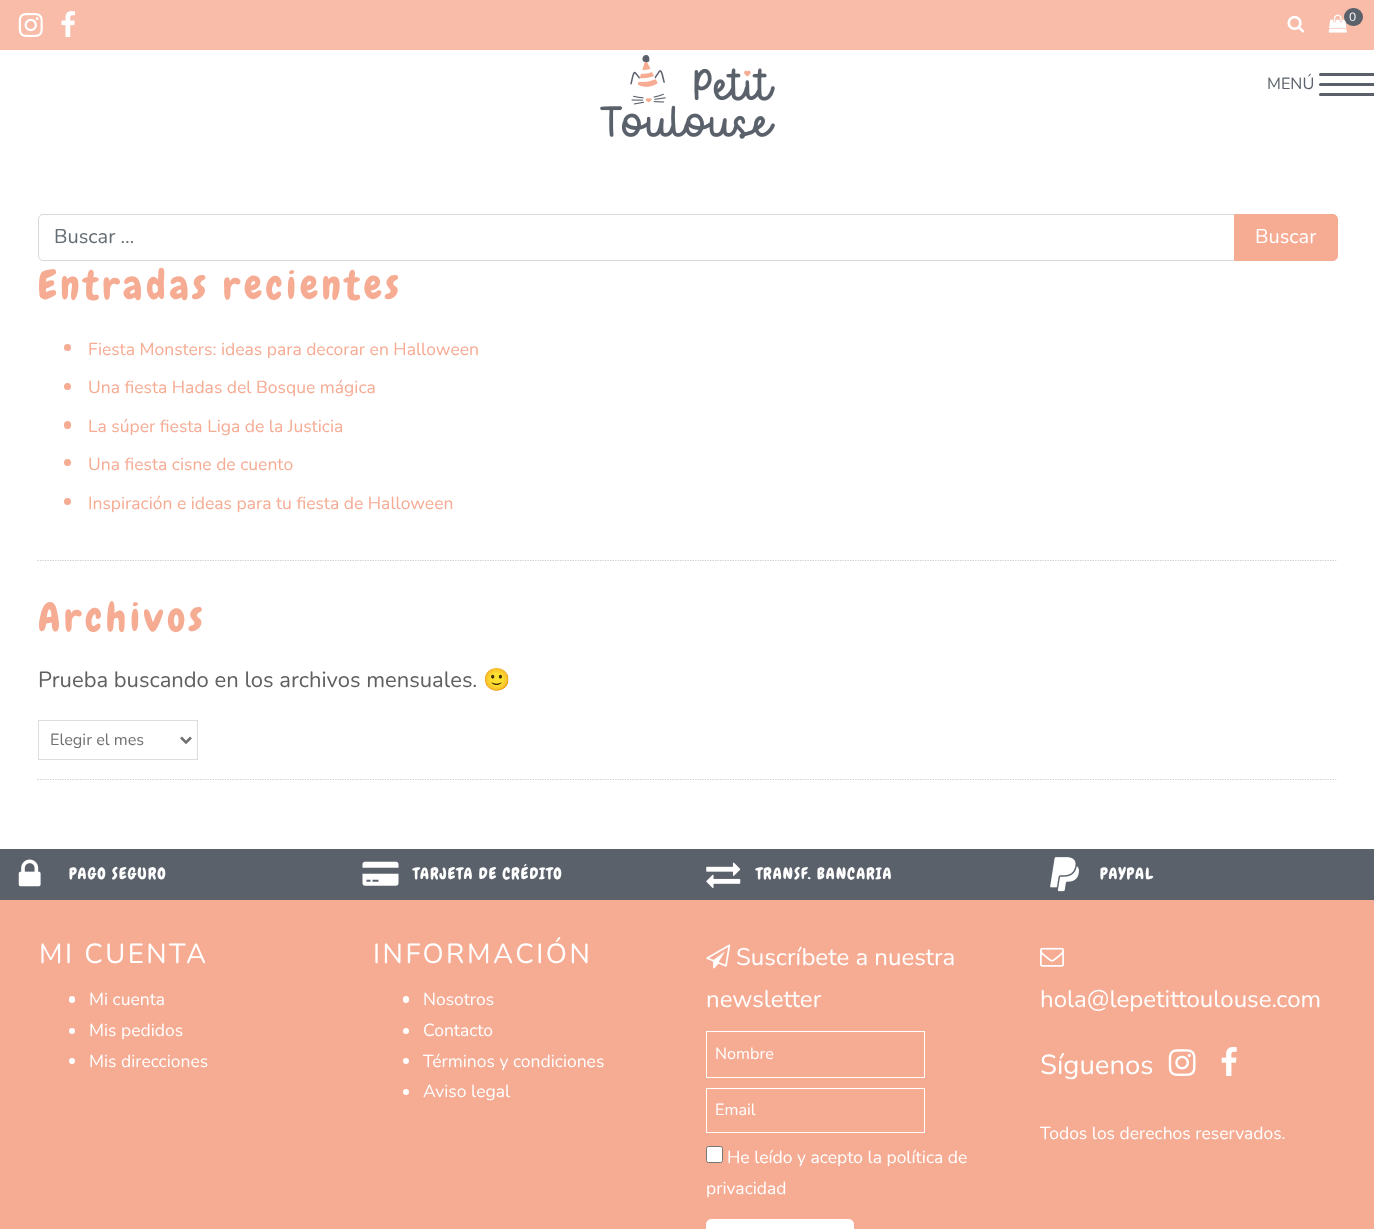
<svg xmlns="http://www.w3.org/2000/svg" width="1374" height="1229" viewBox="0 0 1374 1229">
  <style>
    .t1 { font: 12px Nunito; fill: #fff; }
    .t2 { font: 16.25px Nunito; fill: #5a616b; }
    .t3 { font: 20px Nunito; fill: #636c72; }
    .t4 { font: 20px Nunito; fill: #fff; }
    .t5 { font: 40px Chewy; letter-spacing: 4px; fill: #f6ab93; }
    .t6 { font: 17.5px Nunito; fill: #f6ab93; }
    .t7 { font: 22px Nunito; fill: #606060; }
    .t8 { font: 22px Noto Color Emoji; fill: #606060; }
    .t9 { font: 16.25px Nunito; fill: #707070; }
    .t10 { font: 16px Chewy; letter-spacing: 1.25px; fill: #fff; }
    .t11 { font: 27.5px Nunito; letter-spacing: 2.5px; fill: #fff; }
    .t12 { font: 17.5px Nunito; fill: #fff; }
    .t13 { font: 24px Nunito; fill: #fff; }
    .t14 { font: 16.25px Nunito; fill: #fff; }
    .t15 { font: 27.5px Nunito; fill: #fff; }
  </style>
  <rect width="100%" height="100%" fill="#fff"/>
  <rect x="0" y="0" width="1374" height="50" fill="#f6ab93cc"/>
  <image x="18" y="13" width="25" height="24" href="images/1.png"/>
  <image x="61" y="11" width="14" height="26" href="images/2.png"/>
  <image x="1287" y="15" width="18" height="18" href="images/3.png"/>
  <image x="1328" y="14" width="19" height="19" href="images/4.png"/>
  <rect x="1344" y="8" width="19" height="18" rx="9" fill="#5a616b"/>
  <text x="1349" y="21" class="t1">0</text>
  <image x="600" y="55" width="175" height="84" href="images/5.png"/>
  <text x="1267" y="89" class="t2">MENÚ</text>
  <rect x="1319" y="83" width="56" height="3" rx="1.5" fill="#5a616b"/>
  <rect x="1319" y="73" width="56" height="3" rx="1.5" fill="#5a616b"/>
  <rect x="1319" y="93" width="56" height="3" rx="1.5" fill="#5a616b"/>
  <path d="M43 214.5H1234.5V260.5H43C40.5 260.5 38.5 258.5 38.5 256V219C38.5 216.5 40.5 214.5 43 214.5Z" fill="none" stroke="#d9d9d9"/>
  <text x="54" y="243" class="t3">Buscar …</text>
  <path d="M1234.5 214.5H1333C1335.5 214.5 1337.5 216.5 1337.5 219V256C1337.5 258.5 1335.5 260.5 1333 260.5H1234.5Z" fill="#f6ab93" stroke="#f6ab93"/>
  <text x="1255" y="243" class="t4">Buscar</text>
  <path d="M37.5 560.5H1337.5" fill="none" stroke="#ccc" stroke-width="1.2" stroke-dasharray="1.25 1.25"/>
  <text x="38" y="299" class="t5">Entradas recientes</text>
  <circle cx="67.5" cy="347.5" r="3.5" fill="#f6ab93"/>
  <text x="88" y="355" class="t6">Fiesta Monsters: ideas para decorar en Halloween</text>
  <circle cx="67.5" cy="386.5" r="3.5" fill="#f6ab93"/>
  <text x="88" y="393" class="t6">Una fiesta Hadas del Bosque mágica</text>
  <rect x="64" y="421" width="7" height="8" rx="3.5" fill="#f6ab93"/>
  <text x="88" y="432" class="t6">La súper fiesta Liga de la Justicia</text>
  <circle cx="67.5" cy="462.5" r="3.5" fill="#f6ab93"/>
  <text x="88" y="470" class="t6">Una fiesta cisne de cuento</text>
  <circle cx="67.5" cy="501.5" r="3.5" fill="#f6ab93"/>
  <text x="88" y="509" class="t6">Inspiración e ideas para tu fiesta de Halloween</text>
  <path d="M37.5 779.5H1337.5" fill="none" stroke="#ccc" stroke-width="1.2" stroke-dasharray="1.25 1.25"/>
  <text x="38" y="631" class="t5">Archivos</text>
  <text x="38" y="687" class="t7">Prueba buscando en los archivos mensuales.</text>
  <text x="483" y="687" class="t8">🙂</text>
  <rect x="38.5" y="720.5" width="159" height="39" fill="none" stroke="#ddd"/>
  <path d="M181 737.5L186 742.5L191 737.5" fill="none" stroke="#707070" stroke-width="2.5"/>
  <text x="50" y="745" class="t9">Elegir el mes</text>
  <rect x="0" y="849" width="1374" height="51" fill="#5a616b"/>
  <image x="18" y="859" width="23" height="28" href="images/6.png"/>
  <text x="69" y="879" class="t10">PAGO SEGURO</text>
  <image x="362" y="861" width="37" height="25" href="images/7.png"/>
  <text x="413" y="879" class="t10">TARJETA DE CRÉDITO</text>
  <image x="706" y="862" width="35" height="26" href="images/8.png"/>
  <text x="756" y="879" class="t10">TRANSF. BANCARIA</text>
  <image x="1050" y="857" width="29" height="35" href="images/9.png"/>
  <text x="1100" y="879" class="t10">PAYPAL</text>
  <rect x="0" y="900" width="1374" height="329" fill="#f6ab93"/>
  <text x="39" y="963" class="t11">MI CUENTA</text>
  <rect x="69" y="996" width="6" height="7" rx="3" fill="#fff"/>
  <text x="89" y="1005" class="t12">Mi cuenta</text>
  <circle cx="72" cy="1031" r="3" fill="#fff"/>
  <text x="89" y="1036" class="t12">Mis pedidos</text>
  <circle cx="72" cy="1061" r="3" fill="#fff"/>
  <text x="89" y="1067" class="t12">Mis direcciones</text>
  <text x="373" y="963" class="t11">INFORMACIÓN</text>
  <rect x="403" y="996" width="6" height="7" rx="3" fill="#fff"/>
  <text x="423" y="1005" class="t12">Nosotros</text>
  <circle cx="406" cy="1031" r="3" fill="#fff"/>
  <text x="423" y="1036" class="t12">Contacto</text>
  <circle cx="406" cy="1061" r="3" fill="#fff"/>
  <text x="423" y="1067" class="t12">Términos y condiciones</text>
  <circle cx="406" cy="1092" r="3" fill="#fff"/>
  <text x="423" y="1097" class="t12">Aviso legal</text>
  <image x="706" y="944" width="25" height="25" href="images/10.png"/>
  <text x="736" y="965" class="t13">Suscríbete a nuestra</text>
  <text x="706" y="1007" class="t13">newsletter</text>
  <rect x="706.5" y="1031.5" width="218" height="46" fill="none" stroke="#fff"/>
  <text x="715" y="1059" class="t14">Nombre</text>
  <rect x="706.5" y="1088.5" width="218" height="44" fill="none" stroke="#fff"/>
  <text x="715" y="1115" class="t14">Email</text>
  <rect x="706.5" y="1146.5" width="16" height="16" rx="2" fill="#fff" stroke="#767676"/>
  <text x="727" y="1163" class="t12">He leído y acepto la política de</text>
  <text x="706" y="1194" class="t12">privacidad</text>
  <rect x="706.5" y="1219.5" width="147" height="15" rx="4.5" fill="#fff" stroke="#fff"/>
  <image x="1040" y="947" width="24" height="20" href="images/11.png"/>
  <text x="1040" y="1007" class="t13">hola@lepetittoulouse.com</text>
  <text x="1040" y="1074" class="t15">Síguenos</text>
  <image x="1168" y="1049" width="28" height="27" href="images/12.png"/>
  <image x="1221" y="1047" width="16" height="29" href="images/13.png"/>
  <text x="1040" y="1139" class="t12">Todos los derechos reservados.</text>
</svg>
